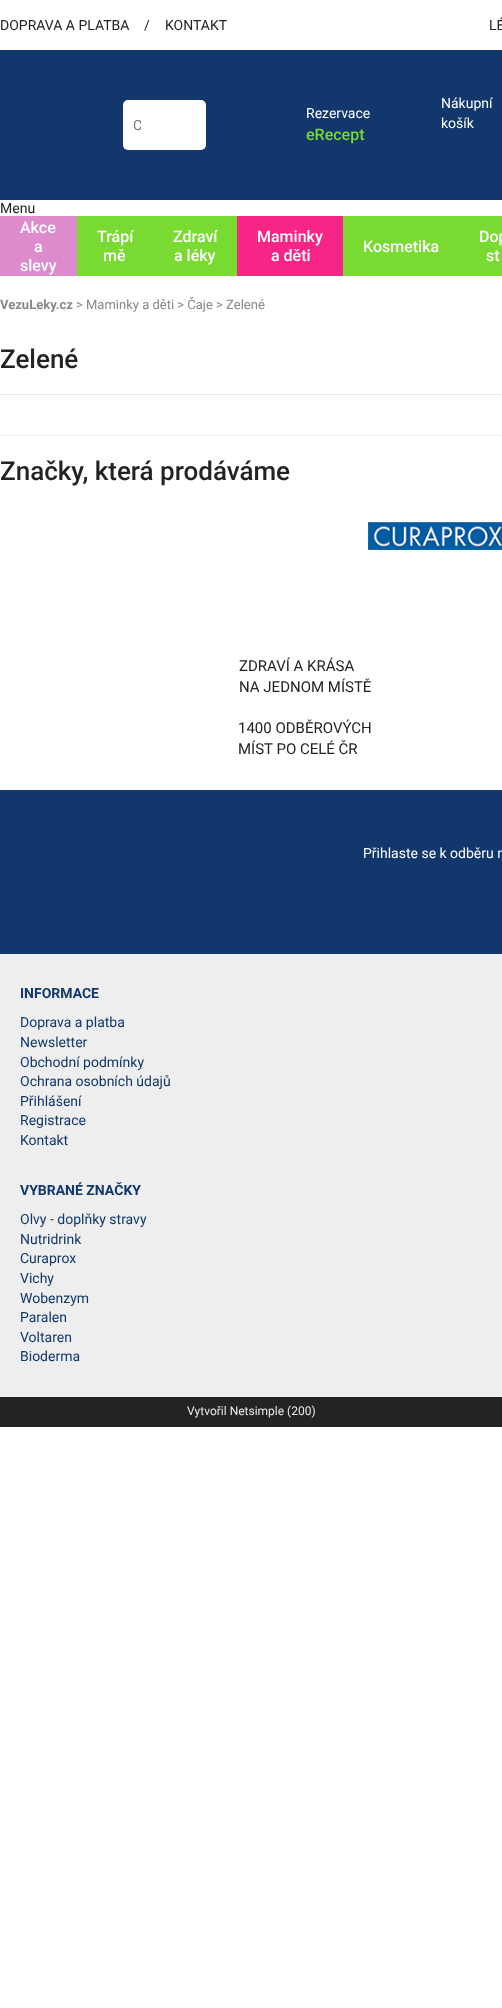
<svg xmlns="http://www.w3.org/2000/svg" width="502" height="2008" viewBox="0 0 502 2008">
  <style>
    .t1 { font: 14px Roboto; fill: #232323; }
    .t2 { font: 14px Roboto; fill: #757575; }
    .t3 { font: 14px Roboto; fill: #fff; }
    .t4 { font: 500 16px Roboto; fill: #79db31; }
    .t5 { font: 500 16px Roboto; fill: #fff; }
    .t6 { font: bold 13px Roboto; fill: #888; }
    .t7 { font: 13px Roboto; fill: #888; }
    .t8 { font: 500 26px Roboto; fill: #232323; }
    .t9 { font: 15px Roboto; fill: #232323; }
    .t10 { font: bold 14px Roboto; fill: #12376c; }
    .t11 { font: 14px Roboto; fill: #12376c; }
    .t12 { font: 12px Roboto; fill: #e9e9e9; }
  </style>
  <defs>
    <clipPath id="clip1"><rect x="133" y="117" width="8" height="16"/></clipPath>
  </defs>
  <rect width="100%" height="100%" fill="#fff"/>
  <text x="0" y="30" class="t1">DOPRAVA A PLATBA</text>
  <text x="144" y="30" class="t1">/</text>
  <text x="165" y="30" class="t1">KONTAKT</text>
  <text x="489" y="30" class="t1">LÉ</text>
  <rect x="0" y="50" width="502" height="150" fill="#12376c"/>
  <rect x="123" y="100" width="83" height="50" rx="5" fill="#fff"/>
  <g clip-path="url(#clip1)">
    <text x="133" y="130" class="t2">C</text>
  </g>
  <text x="306" y="118" class="t3">Rezervace</text>
  <text x="306" y="140" class="t4">eRecept</text>
  <text x="441" y="108" class="t3">Nákupní</text>
  <text x="441" y="128" class="t3">košík</text>
  <text x="0" y="213" class="t1">Menu</text>
  <rect x="77" y="216" width="425" height="60" fill="#79db31"/>
  <rect x="0" y="216" width="77" height="60" fill="#de8bcd"/>
  <text x="20" y="233" class="t5">Akce</text>
  <text x="34" y="252" class="t5">a</text>
  <text x="20" y="271" class="t5">slevy</text>
  <text x="97" y="242" class="t5">Trápí</text>
  <text x="103" y="261" class="t5">mě</text>
  <text x="173" y="242" class="t5">Zdraví</text>
  <text x="174" y="261" class="t5">a léky</text>
  <rect x="237" y="216" width="106" height="60" fill="#f72585"/>
  <text x="257" y="242" class="t5">Maminky</text>
  <text x="271" y="261" class="t5">a děti</text>
  <text x="363" y="252" class="t5">Kosmetika</text>
  <text x="479" y="242" class="t5">Dop</text>
  <text x="486" y="261" class="t5">st</text>
  <text x="0" y="309" class="t6">VezuLeky.cz</text>
  <text x="76" y="309" class="t7">&gt; Maminky a děti &gt; Čaje &gt; Zelené</text>
  <text x="0" y="368" class="t8">Zelené</text>
  <rect x="0" y="394" width="502" height="1" fill="#e8e8e8"/>
  <rect x="0" y="435" width="502" height="1" fill="#eee"/>
  <text x="0" y="480" class="t8">Značky, která prodáváme</text>
  <image x="368" y="522" width="134" height="28" href="images/1.png"/>
  <text x="239" y="671" class="t9">ZDRAVÍ A KRÁSA</text>
  <text x="239" y="692" class="t9">NA JEDNOM MÍSTĚ</text>
  <text x="238" y="733" class="t9">1400 ODBĚROVÝCH</text>
  <text x="238" y="754" class="t9">MÍST PO CELÉ ČR</text>
  <rect x="0" y="790" width="502" height="164" fill="#12376c"/>
  <text x="363" y="858" class="t3">Přihlaste se k odběru n</text>
  <rect x="0" y="954" width="502" height="443" fill="#eee"/>
  <text x="20" y="998" class="t10">INFORMACE</text>
  <text x="20" y="1027" class="t11">Doprava a platba</text>
  <text x="20" y="1047" class="t11">Newsletter</text>
  <text x="20" y="1067" class="t11">Obchodní podmínky</text>
  <text x="20" y="1086" class="t11">Ochrana osobních údajů</text>
  <text x="20" y="1106" class="t11">Přihlášení</text>
  <text x="20" y="1125" class="t11">Registrace</text>
  <text x="20" y="1145" class="t11">Kontakt</text>
  <text x="20" y="1195" class="t10">VYBRANÉ ZNAČKY</text>
  <text x="20" y="1224" class="t11">Olvy - doplňky stravy</text>
  <text x="20" y="1244" class="t11">Nutridrink</text>
  <text x="20" y="1263" class="t11">Curaprox</text>
  <text x="20" y="1283" class="t11">Vichy</text>
  <text x="20" y="1303" class="t11">Wobenzym</text>
  <text x="20" y="1322" class="t11">Paralen</text>
  <text x="20" y="1342" class="t11">Voltaren</text>
  <text x="20" y="1361" class="t11">Bioderma</text>
  <rect x="0" y="1397" width="502" height="30" fill="#232323"/>
  <text x="187" y="1415" class="t12">Vytvořil Netsimple (200)</text>
</svg>
